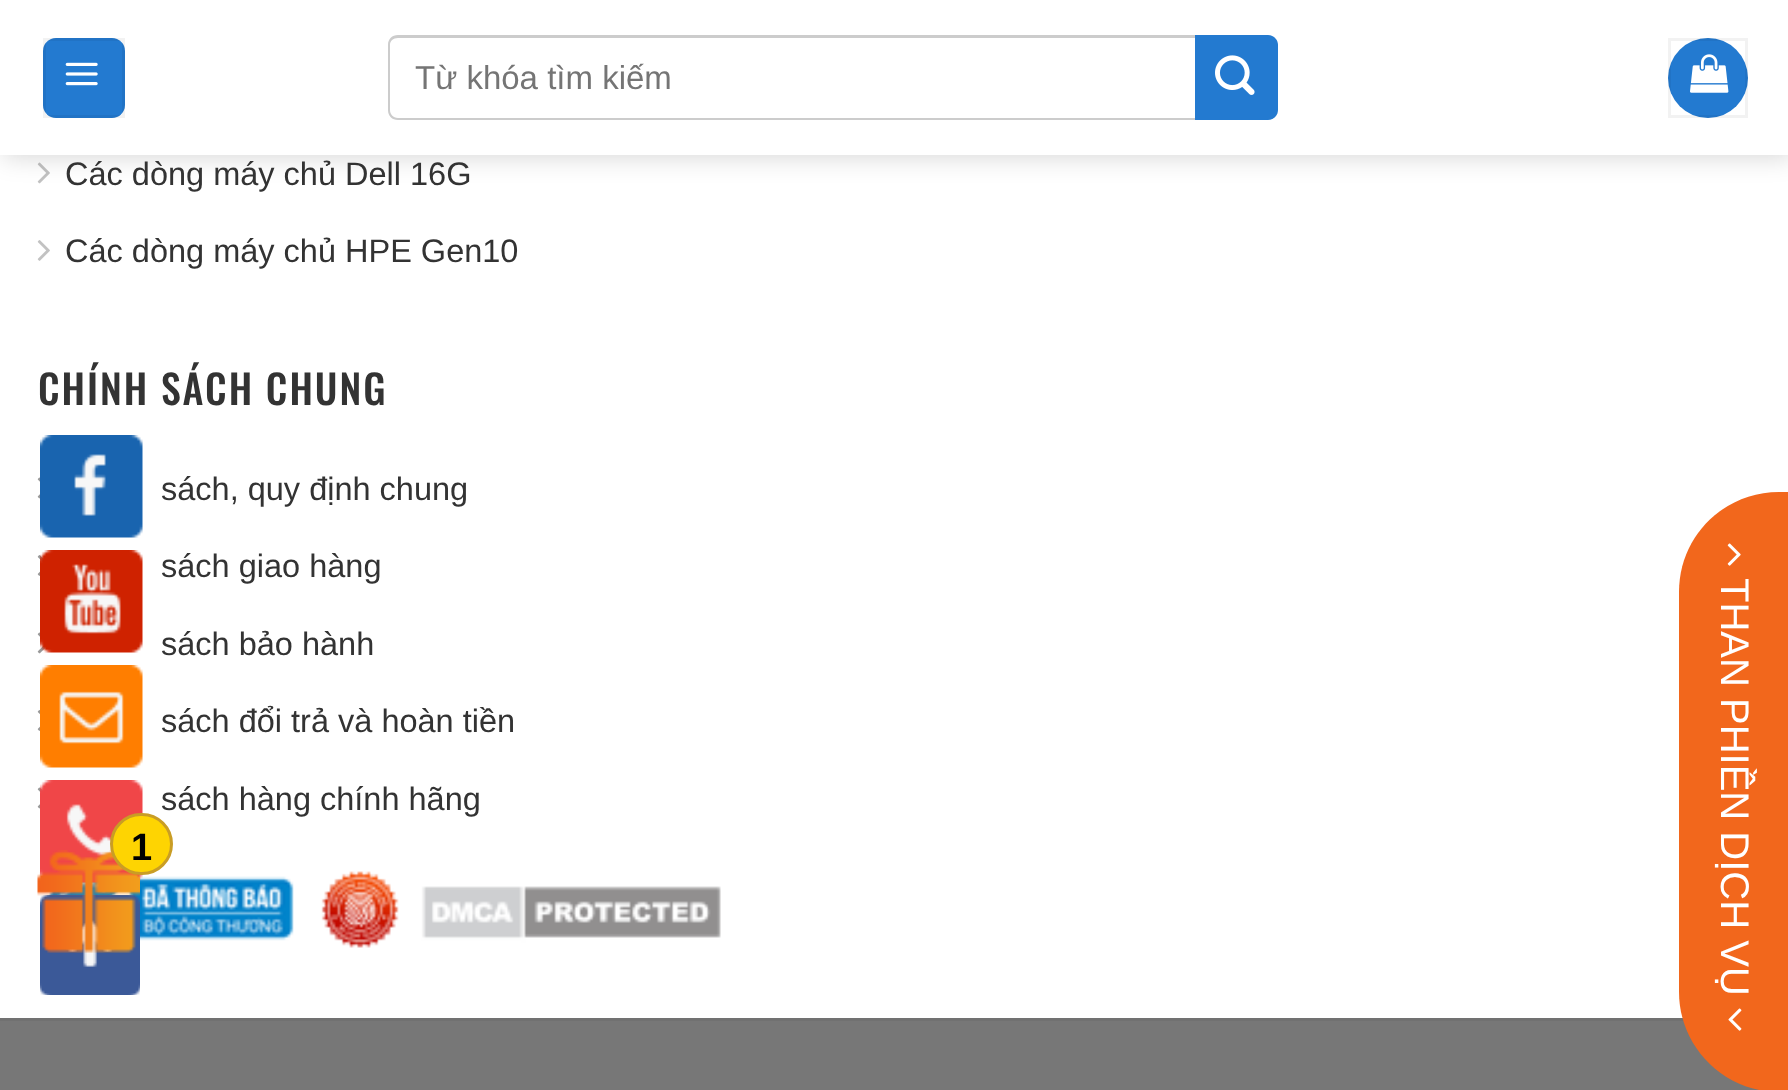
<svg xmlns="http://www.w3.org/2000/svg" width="1788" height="1090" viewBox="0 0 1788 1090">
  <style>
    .t1 { font: 33px Liberation Sans; fill: #757575; }
    .t2 { font: 32.5px Liberation Sans; fill: #333; }
    .t3 { font: 500 40px Oswald; letter-spacing: 2px; fill: #333; }
    .t4 { font: bold 38px Liberation Sans; fill: #000; }
    .t5 { font: 40px Liberation Sans; fill: #fff; }
  </style>
  <rect width="100%" height="100%" fill="#fff"/>
  <image x="37" y="162" width="13" height="22" href="images/4.png"/>
  <rect x="3" y="3" width="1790" height="155" fill="#00000026" filter="blur(12.5px)"/>
  <rect x="0" y="0" width="1788" height="155" fill="#fff"/>
  <rect x="43" y="38" width="82" height="80" rx="13" fill="#237ad0"/>
  <rect x="44.5" y="39.5" width="79" height="77" fill="none" stroke="#0000000d" stroke-width="3"/>
  <image x="65" y="62" width="33" height="24" href="images/1.png"/>
  <circle cx="1708" cy="78" r="40" fill="#237ad0"/>
  <rect x="1669.5" y="39.5" width="77" height="77" fill="none" stroke="#0000000d" stroke-width="3"/>
  <image x="1690" y="54" width="39" height="39" href="images/2.png"/>
  <path d="M398 35H1195V120H398C392 120 388 116 388 110V45C388 39 392 35 398 35ZM398 38H1195V118H398C393 118 390 114 390 110V45C390 41 393 38 398 38Z" fill="#ccc" fill-rule="evenodd"/>
  <text x="415" y="89" class="t1">Từ khóa tìm kiếm</text>
  <path d="M1195 35H1268C1273.5 35 1278 39.5 1278 45V110C1278 115.5 1273.5 120 1268 120H1195Z" fill="#237ad0"/>
  <image x="1215" y="55" width="40" height="40" href="images/3.png"/>
  <text x="65" y="185" class="t2">Các dòng máy chủ Dell 16G</text>
  <image x="37" y="240" width="13" height="21" href="images/5.png"/>
  <text x="65" y="262" class="t2">Các dòng máy chủ HPE Gen10</text>
  <text x="38" y="405" class="t3">CHÍNH SÁCH CHUNG</text>
  <image x="37" y="477" width="3" height="22" href="images/6.png"/>
  <text x="161" y="500" class="t2">sách, quy định chung</text>
  <image x="37" y="555" width="7" height="21" href="images/7.png"/>
  <text x="161" y="577" class="t2">sách giao hàng</text>
  <image x="37" y="632" width="9" height="22" href="images/8.png"/>
  <text x="161" y="655" class="t2">sách bảo hành</text>
  <image x="37" y="710" width="3" height="21" href="images/9.png"/>
  <text x="161" y="732" class="t2">sách đổi trả và hoàn tiền</text>
  <image x="37" y="787" width="7" height="22" href="images/10.png"/>
  <text x="161" y="810" class="t2">sách hàng chính hãng</text>
  <image x="44" y="868" width="677" height="80" href="images/11.png"/>
  <rect x="0" y="1021" width="1759" height="69" fill="#777"/>
  <rect x="0" y="1018" width="1684" height="3" fill="#717171"/>
  <image x="40" y="780" width="103" height="103" href="images/16.png"/>
  <image x="40" y="895" width="100" height="100" href="images/17.png"/>
  <image x="37" y="850" width="103" height="103" href="images/12.png"/>
  <rect x="111.5" y="814.5" width="60" height="59" rx="29.5" fill="#fed402" stroke="#c99d25" stroke-width="3"/>
  <text x="131" y="860" class="t4">1</text>
  <image x="40" y="435" width="103" height="103" href="images/13.png"/>
  <image x="40" y="550" width="103" height="103" href="images/14.png"/>
  <image x="40" y="665" width="103" height="103" href="images/15.png"/>
  <path d="M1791 492V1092H1779C1724 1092 1679 1047 1679 992V592C1679 536 1724 492 1779 492Z" fill="#f2671c"/>
  <image x="1727" y="543" width="14" height="23" href="images/18.png"/>
  <text x="1721" y="578" transform="rotate(90 1721 578)" class="t5">THAN PHIỀN DỊCH VỤ</text>
  <image x="1728" y="1008" width="14" height="23" href="images/19.png"/>
</svg>
